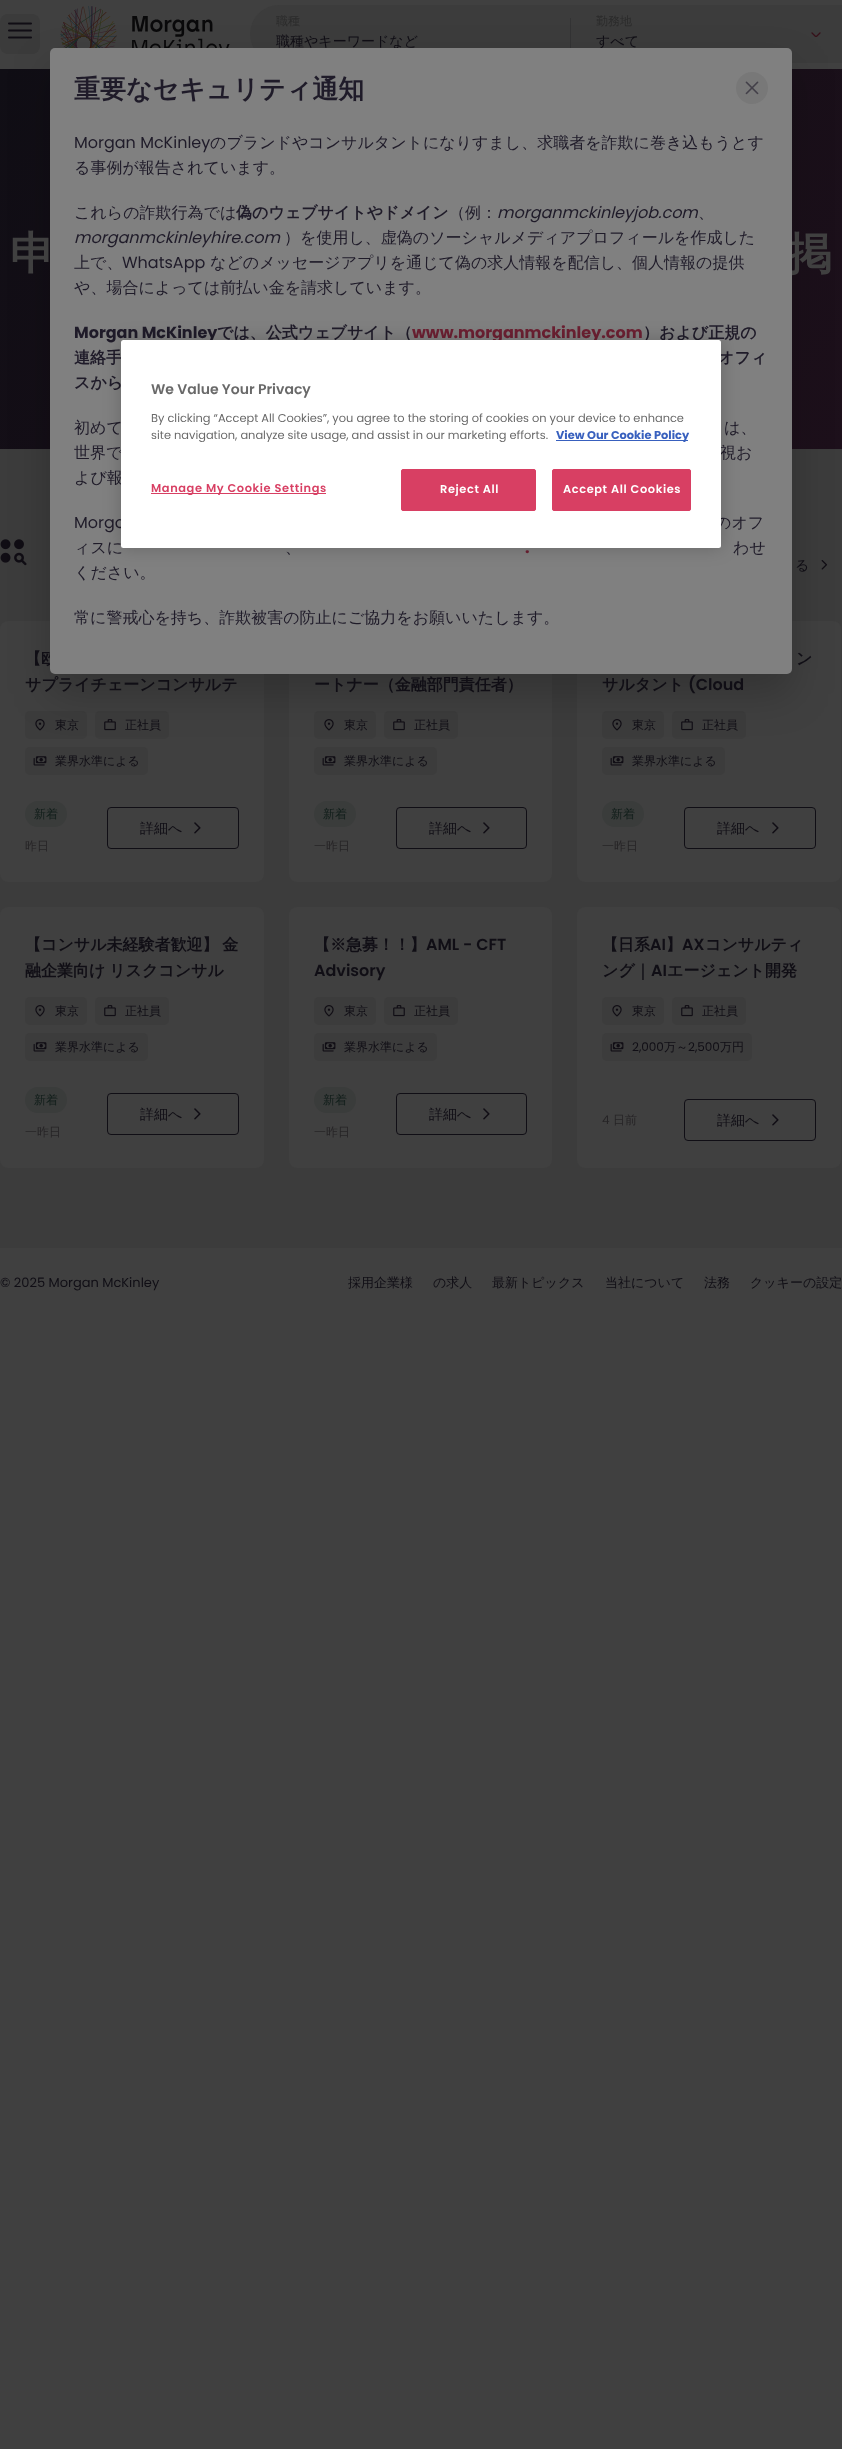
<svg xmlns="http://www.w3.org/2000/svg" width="842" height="2449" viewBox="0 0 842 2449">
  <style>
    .t1 { font: 500 12px WenQuanYi Zen Hei; fill: #2b2b2b; }
    .t2 { font: 500 14px WenQuanYi Zen Hei; fill: #100e15; }
    .t3 { font: bold 45px WenQuanYi Zen Hei; fill: #404040; }
    .t4 { font: bold 16px WenQuanYi Zen Hei; fill: #100e15; }
    .t5 { font: bold 26px WenQuanYi Zen Hei; fill: #1f1b29; }
    .t6 { font: 16px Poppins; fill: #1f1b29; }
    .t7 { font: 500 16px WenQuanYi Zen Hei; fill: #1f1b29; }
    .t8 { font: bold 16px WenQuanYi Zen Hei; fill: #1f1b29; }
    .t9 { font: italic 16px Poppins; fill: #1f1b29; }
    .t10 { font: bold 16px Poppins; fill: #1f1b29; }
    .t11 { font: bold 16px Poppins; fill: #6c2032; }
    .t12 { font: 500 12px WenQuanYi Zen Hei; fill: #100e15; }
    .t13 { font: 500 12px WenQuanYi Zen Hei; fill: #111e1a; }
    .t14 { font: 500 12px WenQuanYi Zen Hei; fill: #262426; }
    .t15 { font: 600 16px Poppins; fill: #100e15; }
    .t16 { font: 12px Poppins; fill: #100e15; }
    .t17 { font: 12px Poppins; fill: #262426; }
    .t18 { font: 13px Poppins; fill: #100e15; }
    .t19 { font: 500 13px WenQuanYi Zen Hei; fill: #100e15; }
    .t20 { font: 600 14px Poppins; fill: #696969; }
    .t21 { font: 11.4px Poppins; fill: #696969; }
    .t22 { font: bold 11.4px Poppins; fill: #3860be; }
    .t23 { font: 600 11.4px Poppins; letter-spacing: 0.6px; fill: #d83f63; }
    .t24 { font: 600 11.4px Poppins; letter-spacing: 0.6px; fill: #fff; }
  </style>
  <defs>
    <linearGradient id="g1" gradientUnits="userSpaceOnUse" x1="80" y1="-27" x2="762" y2="545"><stop offset="0" stop-color="#100e15"/><stop offset="1" stop-color="#1d101b"/></linearGradient>
  </defs>
  <rect width="100%" height="100%" fill="#404040"/>
  <rect x="0" y="14" width="40" height="40" rx="8" fill="#3b3b3b"/>
  <image x="8" y="22" width="24" height="17" href="images/1.png"/>
  <image x="60" y="6" width="170" height="42" href="images/2.png"/>
  <rect x="250" y="5" width="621" height="58" rx="29" fill="#3c3c3c"/>
  <text x="276" y="25" class="t1">職種</text>
  <rect x="570" y="18" width="1" height="32" fill="#333334"/>
  <text x="276" y="46" class="t2">職種やキーワードなど</text>
  <text x="596" y="25" class="t1">勤務地</text>
  <image x="811" y="32" width="10" height="5" href="images/3.png"/>
  <text x="596" y="46" class="t2">すべて</text>
  <rect x="0" y="69" width="842" height="380" fill="url(#g1)"/>
  <rect x="0" y="449" width="842" height="799" fill="#3c3c3c"/>
  <image x="0" y="539" width="27" height="27" href="images/5.png"/>
  <image x="821" y="560" width="7" height="10" href="images/6.png"/>
  <rect x="0" y="621" width="264" height="261" rx="8" fill="#404040"/>
  <rect x="25" y="711" width="62" height="28" rx="5" fill="#3c3c3c"/>
  <image x="35" y="719" width="10" height="12" href="images/7.png"/>
  <rect x="95" y="711" width="74" height="28" rx="5" fill="#3c3c3c"/>
  <image x="104" y="719" width="12" height="12" href="images/8.png"/>
  <rect x="25" y="747" width="123" height="28" rx="5" fill="#3c3c3c"/>
  <rect x="289" y="621" width="263" height="261" rx="8" fill="#404040"/>
  <rect x="314" y="711" width="62" height="28" rx="5" fill="#3c3c3c"/>
  <image x="324" y="719" width="10" height="12" href="images/7.png"/>
  <rect x="384" y="711" width="74" height="28" rx="5" fill="#3c3c3c"/>
  <image x="393" y="719" width="12" height="12" href="images/8.png"/>
  <rect x="314" y="747" width="123" height="28" rx="5" fill="#3c3c3c"/>
  <rect x="577" y="621" width="264" height="261" rx="8" fill="#404040"/>
  <rect x="602" y="711" width="62" height="28" rx="5" fill="#3c3c3c"/>
  <image x="612" y="719" width="10" height="12" href="images/7.png"/>
  <rect x="672" y="711" width="74" height="28" rx="5" fill="#3c3c3c"/>
  <image x="681" y="719" width="12" height="12" href="images/8.png"/>
  <rect x="602" y="747" width="123" height="28" rx="5" fill="#3c3c3c"/>
  <rect x="50" y="68" width="742" height="626" rx="5" fill="#00000033" filter="blur(20px)"/>
  <text x="787" y="269" class="t3">掲</text>
  <text x="25" y="664" class="t4">【欧</text>
  <rect x="50" y="48" width="742" height="626" rx="5" fill="#808080"/>
  <text x="74" y="98" class="t5">重要なセキュリティ通知</text>
  <circle cx="752" cy="88" r="16" fill="#787878"/>
  <image x="745" y="81" width="14" height="14" href="images/4.png"/>
  <text x="74" y="148" class="t6">Morgan McKinley</text>
  <text x="210" y="148" class="t7">のブランドやコンサルタントになりすまし、求職者を詐欺に巻き込もうとす</text>
  <text x="74" y="173" class="t7">る事例が報告されています。</text>
  <text x="74" y="218" class="t7">これらの詐欺行為では</text>
  <text x="236" y="218" class="t8">偽のウェブサイトやドメイン</text>
  <text x="449" y="218" class="t7">（例：</text>
  <text x="497" y="218" class="t9">morganmckinleyjob.com</text>
  <text x="698" y="218" class="t7">、</text>
  <text x="74" y="243" class="t9">morganmckinleyhire.com</text>
  <text x="284" y="243" class="t7">）を使用し、虚偽のソーシャルメディアプロフィールを作成した</text>
  <text x="74" y="268" class="t7">上で、</text>
  <text x="122" y="268" class="t6">WhatsApp</text>
  <text x="210" y="268" class="t7">などのメッセージアプリを通じて偽の求人情報を配信し、個人情報の提供</text>
  <text x="74" y="293" class="t7">や、場合によっては前払い金を請求しています。</text>
  <text x="74" y="338" class="t10">Morgan McKinley</text>
  <text x="217" y="338" class="t8">では、公式ウェブサイト（</text>
  <text x="412" y="338" class="t11">www.morganmckinley.com</text>
  <text x="643" y="338" class="t8">）および正規の</text>
  <text x="74" y="363" class="t8">連絡手</text>
  <text x="718" y="363" class="t8">オフィ</text>
  <text x="74" y="388" class="t8">スから</text>
  <text x="74" y="433" class="t7">初めて</text>
  <text x="724" y="433" class="t7">は、</text>
  <text x="74" y="458" class="t7">世界で</text>
  <text x="720" y="458" class="t7">視お</text>
  <text x="74" y="483" class="t7">よび報</text>
  <text x="74" y="528" class="t6">Morga</text>
  <text x="715" y="528" class="t7">のオフ</text>
  <text x="74" y="553" class="t7">ィスに</text>
  <text x="285" y="553" class="t7">、</text>
  <text x="525" y="553" class="t11">.</text>
  <text x="733" y="553" class="t7">わせ</text>
  <text x="74" y="578" class="t7">ください。</text>
  <text x="74" y="623" class="t7">常に警戒心を持ち、詐欺被害の防止にご協力をお願いいたします。</text>
  <text x="10" y="269" class="t3">申</text>
  <text x="795" y="570" class="t2">る</text>
  <text x="25" y="690" class="t4">サプライチェーンコンサルテ</text>
  <text x="55" y="729" class="t12">東京</text>
  <text x="125" y="729" class="t12">正社員</text>
  <image x="33" y="756" width="14" height="10" href="images/9.png"/>
  <text x="55" y="765" class="t12">業界水準による</text>
  <rect x="25" y="801" width="42" height="26" rx="13" fill="#3a3c3b"/>
  <text x="34" y="818" class="t13">新着</text>
  <text x="25" y="850" class="t14">昨日</text>
  <rect x="107.5" y="807.5" width="131" height="41" rx="3.5" fill="none" stroke="#100e15"/>
  <text x="140" y="833" class="t2">詳細へ</text>
  <image x="194" y="822" width="7" height="12" href="images/10.png"/>
  <text x="314" y="690" class="t4">ートナー（金融部門責任者）</text>
  <text x="344" y="729" class="t12">東京</text>
  <text x="414" y="729" class="t12">正社員</text>
  <image x="322" y="756" width="14" height="10" href="images/9.png"/>
  <text x="344" y="765" class="t12">業界水準による</text>
  <rect x="314" y="801" width="42" height="26" rx="13" fill="#3a3c3b"/>
  <text x="323" y="818" class="t13">新着</text>
  <text x="314" y="850" class="t14">一昨日</text>
  <rect x="396.5" y="807.5" width="130" height="41" rx="3.5" fill="none" stroke="#100e15"/>
  <text x="429" y="833" class="t2">詳細へ</text>
  <image x="483" y="822" width="7" height="12" href="images/10.png"/>
  <text x="796" y="664" class="t4">ン</text>
  <text x="602" y="690" class="t4">サルタント</text>
  <text x="688" y="690" class="t15">(Cloud</text>
  <text x="632" y="729" class="t12">東京</text>
  <text x="702" y="729" class="t12">正社員</text>
  <image x="610" y="756" width="14" height="10" href="images/9.png"/>
  <text x="632" y="765" class="t12">業界水準による</text>
  <rect x="602" y="801" width="42" height="26" rx="13" fill="#3a3c3b"/>
  <text x="611" y="818" class="t13">新着</text>
  <text x="602" y="850" class="t14">一昨日</text>
  <rect x="684.5" y="807.5" width="131" height="41" rx="3.5" fill="none" stroke="#100e15"/>
  <text x="717" y="833" class="t2">詳細へ</text>
  <image x="772" y="822" width="7" height="12" href="images/10.png"/>
  <rect x="0" y="907" width="264" height="261" rx="8" fill="#404040"/>
  <text x="25" y="950" word-spacing="-1" class="t4">【コンサル未経験者歓迎】 金</text>
  <text x="25" y="976" word-spacing="-1" class="t4">融企業向け リスクコンサル</text>
  <rect x="25" y="997" width="62" height="28" rx="5" fill="#3c3c3c"/>
  <image x="35" y="1005" width="10" height="12" href="images/7.png"/>
  <text x="55" y="1015" class="t12">東京</text>
  <rect x="95" y="997" width="74" height="28" rx="5" fill="#3c3c3c"/>
  <image x="104" y="1005" width="12" height="12" href="images/8.png"/>
  <text x="125" y="1015" class="t12">正社員</text>
  <rect x="25" y="1033" width="123" height="28" rx="5" fill="#3c3c3c"/>
  <image x="33" y="1042" width="14" height="10" href="images/9.png"/>
  <text x="55" y="1051" class="t12">業界水準による</text>
  <rect x="25" y="1087" width="42" height="26" rx="13" fill="#3a3c3b"/>
  <text x="34" y="1104" class="t13">新着</text>
  <text x="25" y="1136" class="t14">一昨日</text>
  <rect x="107.5" y="1093.5" width="131" height="41" rx="3.5" fill="none" stroke="#100e15"/>
  <text x="140" y="1119" class="t2">詳細へ</text>
  <image x="194" y="1108" width="7" height="12" href="images/10.png"/>
  <rect x="289" y="907" width="263" height="261" rx="8" fill="#404040"/>
  <text x="314" y="950" class="t4">【※急募！！】</text>
  <text x="426" y="950" class="t15">AML - CFT</text>
  <text x="314" y="976" class="t15">Advisory</text>
  <rect x="314" y="997" width="62" height="28" rx="5" fill="#3c3c3c"/>
  <image x="324" y="1005" width="10" height="12" href="images/7.png"/>
  <text x="344" y="1015" class="t12">東京</text>
  <rect x="384" y="997" width="74" height="28" rx="5" fill="#3c3c3c"/>
  <image x="393" y="1005" width="12" height="12" href="images/8.png"/>
  <text x="414" y="1015" class="t12">正社員</text>
  <rect x="314" y="1033" width="123" height="28" rx="5" fill="#3c3c3c"/>
  <image x="322" y="1042" width="14" height="10" href="images/9.png"/>
  <text x="344" y="1051" class="t12">業界水準による</text>
  <rect x="314" y="1087" width="42" height="26" rx="13" fill="#3a3c3b"/>
  <text x="323" y="1104" class="t13">新着</text>
  <text x="314" y="1136" class="t14">一昨日</text>
  <rect x="396.5" y="1093.5" width="130" height="41" rx="3.5" fill="none" stroke="#100e15"/>
  <text x="429" y="1119" class="t2">詳細へ</text>
  <image x="483" y="1108" width="7" height="12" href="images/10.png"/>
  <rect x="577" y="907" width="264" height="261" rx="8" fill="#404040"/>
  <text x="602" y="950" class="t4">【日系</text>
  <text x="650" y="950" class="t15">AI</text>
  <text x="666" y="950" class="t4">】</text>
  <text x="682" y="950" class="t15">AX</text>
  <text x="705" y="950" class="t4">コンサルティ</text>
  <text x="602" y="976" class="t4">ング｜</text>
  <text x="651" y="976" class="t15">AI</text>
  <text x="667" y="976" class="t4">エージェント開発</text>
  <rect x="602" y="997" width="62" height="28" rx="5" fill="#3c3c3c"/>
  <image x="612" y="1005" width="10" height="12" href="images/7.png"/>
  <text x="632" y="1015" class="t12">東京</text>
  <rect x="672" y="997" width="74" height="28" rx="5" fill="#3c3c3c"/>
  <image x="681" y="1005" width="12" height="12" href="images/8.png"/>
  <text x="702" y="1015" class="t12">正社員</text>
  <rect x="602" y="1033" width="150" height="28" rx="5" fill="#3c3c3c"/>
  <image x="610" y="1042" width="14" height="10" href="images/9.png"/>
  <text x="632" y="1051" class="t16">2,000</text>
  <text x="664" y="1051" class="t12">万～</text>
  <text x="688" y="1051" class="t16">2,500</text>
  <text x="720" y="1051" class="t12">万円</text>
  <text x="602" y="1124" class="t17">4</text>
  <text x="613" y="1124" class="t14">日前</text>
  <rect x="684.5" y="1099.5" width="131" height="41" rx="3.5" fill="none" stroke="#100e15"/>
  <text x="717" y="1125" class="t2">詳細へ</text>
  <image x="772" y="1114" width="7" height="12" href="images/10.png"/>
  <text x="0" y="1287" class="t18">© 2025 Morgan McKinley</text>
  <text x="348" y="1287" class="t19">採用企業様</text>
  <text x="433" y="1287" class="t19">の求人</text>
  <text x="492" y="1287" class="t19">最新トピックス</text>
  <text x="605" y="1287" class="t19">当社について</text>
  <text x="704" y="1287" class="t19">法務</text>
  <text x="750" y="1287" class="t19">クッキーの設定</text>
  <rect x="121" y="340" width="600" height="208" rx="2.5" fill="#00000033" filter="blur(9px)"/>
  <rect x="121" y="340" width="600" height="208" rx="2.5" fill="#fff"/>
  <text x="151" y="394" class="t20">We Value Your Privacy</text>
  <text x="151" y="422" class="t21">By clicking “Accept All Cookies”, you agree to the storing of cookies on your device to enhance</text>
  <text x="151" y="439" class="t21">site navigation, analyze site usage, and assist in our marketing efforts.</text>
  <rect x="556" y="440" width="132" height="1" fill="#3860be"/>
  <text x="556" y="439" class="t22">View Our Cookie Policy</text>
  <rect x="151" y="493" width="175" height="1" fill="#d83f63"/>
  <text x="151" y="492" class="t23">Manage My Cookie Settings</text>
  <rect x="401.5" y="469.5" width="134" height="41" rx="1.5" fill="#d83f63" stroke="#d83f63"/>
  <text x="440" y="493" class="t24">Reject All</text>
  <rect x="552.5" y="469.5" width="138" height="41" rx="1.5" fill="#d83f63" stroke="#d83f63"/>
  <text x="563" y="493" class="t24">Accept All Cookies</text>
</svg>
